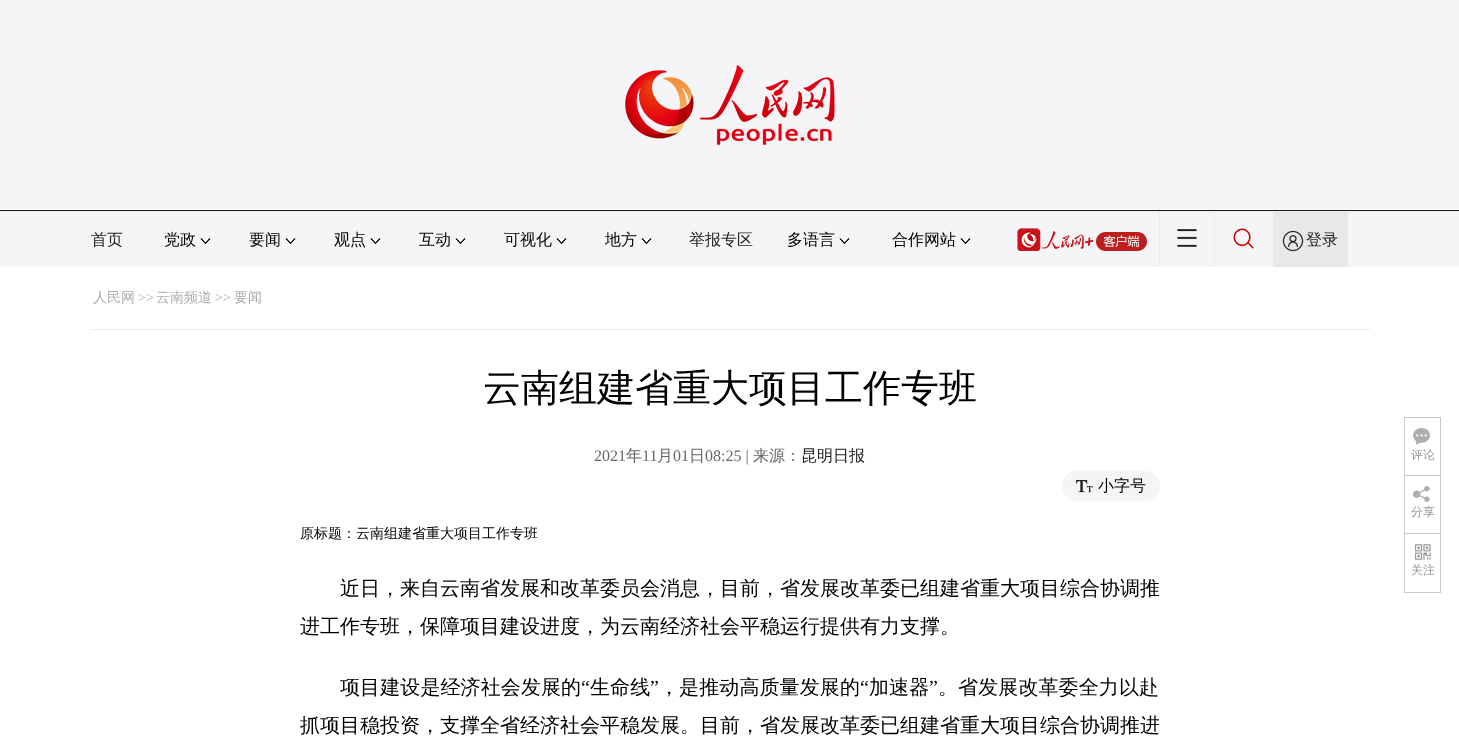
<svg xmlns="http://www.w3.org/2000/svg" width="1459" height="738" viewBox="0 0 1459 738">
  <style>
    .t1 { font: 500 16px WenQuanYi Zen Hei; fill: #212121; }
    .t2 { font: 500 16px WenQuanYi Zen Hei; fill: #000; }
    .t3 { font: 500 14px WenQuanYi Zen Hei; fill: #adadad; }
    .t4 { font: 14px Liberation Serif; fill: #adadad; }
    .t5 { font: 500 38px WenQuanYi Zen Hei; fill: #000; }
    .t6 { font: 16px Liberation Serif; fill: #666; }
    .t7 { font: 500 16px WenQuanYi Zen Hei; fill: #666; }
    .t8 { font: 500 14px WenQuanYi Zen Hei; fill: #000; }
    .t9 { font: 500 20px WenQuanYi Zen Hei; fill: #000; }
    .t10 { font: 500 20px WenQuanYi Zen Hei; letter-spacing: 0.1px; fill: #000; }
    .t11 { font: 20px Liberation Serif; letter-spacing: 0.1px; fill: #000; }
    .t12 { font: 500 12px WenQuanYi Zen Hei; fill: #999; }
  </style>
  <defs>
    <clipPath id="clip1"><rect x="1404" y="417" width="37" height="58"/></clipPath>
    <clipPath id="clip2"><rect x="1404" y="475" width="37" height="58"/></clipPath>
  </defs>
  <rect width="100%" height="100%" fill="#fff"/>
  <rect x="0" y="0" width="1459" height="210" fill="#f5f5f7"/>
  <rect x="0" y="210" width="1459" height="1" fill="#212121"/>
  <image x="625" y="65" width="210" height="80" href="images/1.png"/>
  <rect x="0" y="211" width="1459" height="1" fill="#e9e9e9"/>
  <rect x="0" y="212" width="1459" height="55" fill="#f5f5f7"/>
  <text x="91" y="245" class="t1">首页</text>
  <text x="164" y="245" class="t2">党政</text>
  <image x="200" y="238" width="11" height="6" href="images/2.png"/>
  <text x="249" y="245" class="t2">要闻</text>
  <image x="285" y="238" width="11" height="6" href="images/2.png"/>
  <text x="334" y="245" class="t2">观点</text>
  <image x="370" y="238" width="11" height="6" href="images/2.png"/>
  <text x="419" y="245" class="t2">互动</text>
  <image x="455" y="238" width="11" height="6" href="images/2.png"/>
  <text x="504" y="245" class="t2">可视化</text>
  <image x="556" y="238" width="11" height="6" href="images/2.png"/>
  <text x="605" y="245" class="t2">地方</text>
  <image x="641" y="238" width="11" height="6" href="images/2.png"/>
  <text x="689" y="245" class="t1">举报专区</text>
  <text x="787" y="245" class="t2">多语言</text>
  <image x="839" y="238" width="11" height="6" href="images/2.png"/>
  <text x="892" y="245" class="t2">合作网站</text>
  <image x="960" y="238" width="11" height="6" href="images/2.png"/>
  <image x="1017" y="228" width="130" height="23" href="images/3.png"/>
  <rect x="1214" y="212" width="1" height="55" fill="#ebebed"/>
  <rect x="1159" y="212" width="1" height="55" fill="#ebebed"/>
  <image x="1177" y="229" width="20" height="18" href="images/4.png"/>
  <image x="1233" y="228" width="22" height="22" href="images/5.png"/>
  <rect x="1273" y="212" width="75" height="55" fill="#e8e8ea"/>
  <image x="1282" y="230" width="22" height="22" href="images/6.png"/>
  <text x="1306" y="245" class="t1">登录</text>
  <rect x="90" y="329" width="1280" height="1" fill="#ececec"/>
  <text x="93" y="302" class="t3">人民网</text>
  <text x="138" y="302" class="t4">&gt;&gt;</text>
  <text x="156" y="302" class="t3">云南频道</text>
  <text x="215" y="302" class="t4">&gt;&gt;</text>
  <text x="234" y="302" class="t3">要闻</text>
  <text x="483" y="401" class="t5">云南组建省重大项目工作专班</text>
  <text x="594" y="461" class="t6">2021</text>
  <text x="626" y="461" class="t7">年</text>
  <text x="642" y="461" class="t6">11</text>
  <text x="657" y="461" class="t7">月</text>
  <text x="673" y="461" class="t6">01</text>
  <text x="689" y="461" class="t7">日</text>
  <text x="705" y="461" class="t6">08:25 |</text>
  <text x="753" y="461" class="t7">来源：</text>
  <text x="801" y="461" class="t1">昆明日报</text>
  <rect x="1062" y="471" width="98" height="30" rx="15" fill="#f5f5f7"/>
  <image x="1076" y="480" width="17" height="13" href="images/7.png"/>
  <text x="1098" y="491" class="t2">小字号</text>
  <text x="300" y="538" class="t8">原标题：云南组建省重大项目工作专班</text>
  <text x="340" y="595" class="t9">近日，来自云南省发展和改革委员会消息，目前，省发展改革委已组建省重大项目综合协调推</text>
  <text x="300" y="633" class="t9">进工作专班，保障项目建设进度，为云南经济社会平稳运行提供有力支撑。</text>
  <text x="340" y="694" class="t10">项目建设是经济社会发展的</text>
  <text x="581" y="694" class="t11">“</text>
  <text x="590" y="694" class="t10">生命线</text>
  <text x="650" y="694" class="t11">”</text>
  <text x="659" y="694" class="t10">，是推动高质量发展的</text>
  <text x="860" y="694" class="t11">“</text>
  <text x="869" y="694" class="t10">加速器</text>
  <text x="929" y="694" class="t11">”</text>
  <text x="938" y="694" class="t10">。省发展改革委全力以赴</text>
  <text x="300" y="732" class="t9">抓项目稳投资，支撑全省经济社会平稳发展。目前，省发展改革委已组建省重大项目综合协调推进</text>
  <g clip-path="url(#clip1)">
    <rect x="1404.5" y="417.5" width="36" height="60" fill="none" stroke="#c9c9c9"/>
  </g>
  <image x="1413" y="428" width="17" height="17" href="images/8.png"/>
  <text x="1411" y="459" class="t12">评论</text>
  <g clip-path="url(#clip2)">
    <rect x="1404.5" y="475.5" width="36" height="59" fill="none" stroke="#c9c9c9"/>
  </g>
  <image x="1413" y="486" width="17" height="16" href="images/9.png"/>
  <text x="1411" y="516" class="t12">分享</text>
  <rect x="1404.5" y="533.5" width="36" height="59" fill="none" stroke="#c9c9c9"/>
  <image x="1415" y="544" width="16" height="16" href="images/10.png"/>
  <text x="1411" y="574" class="t12">关注</text>
</svg>
